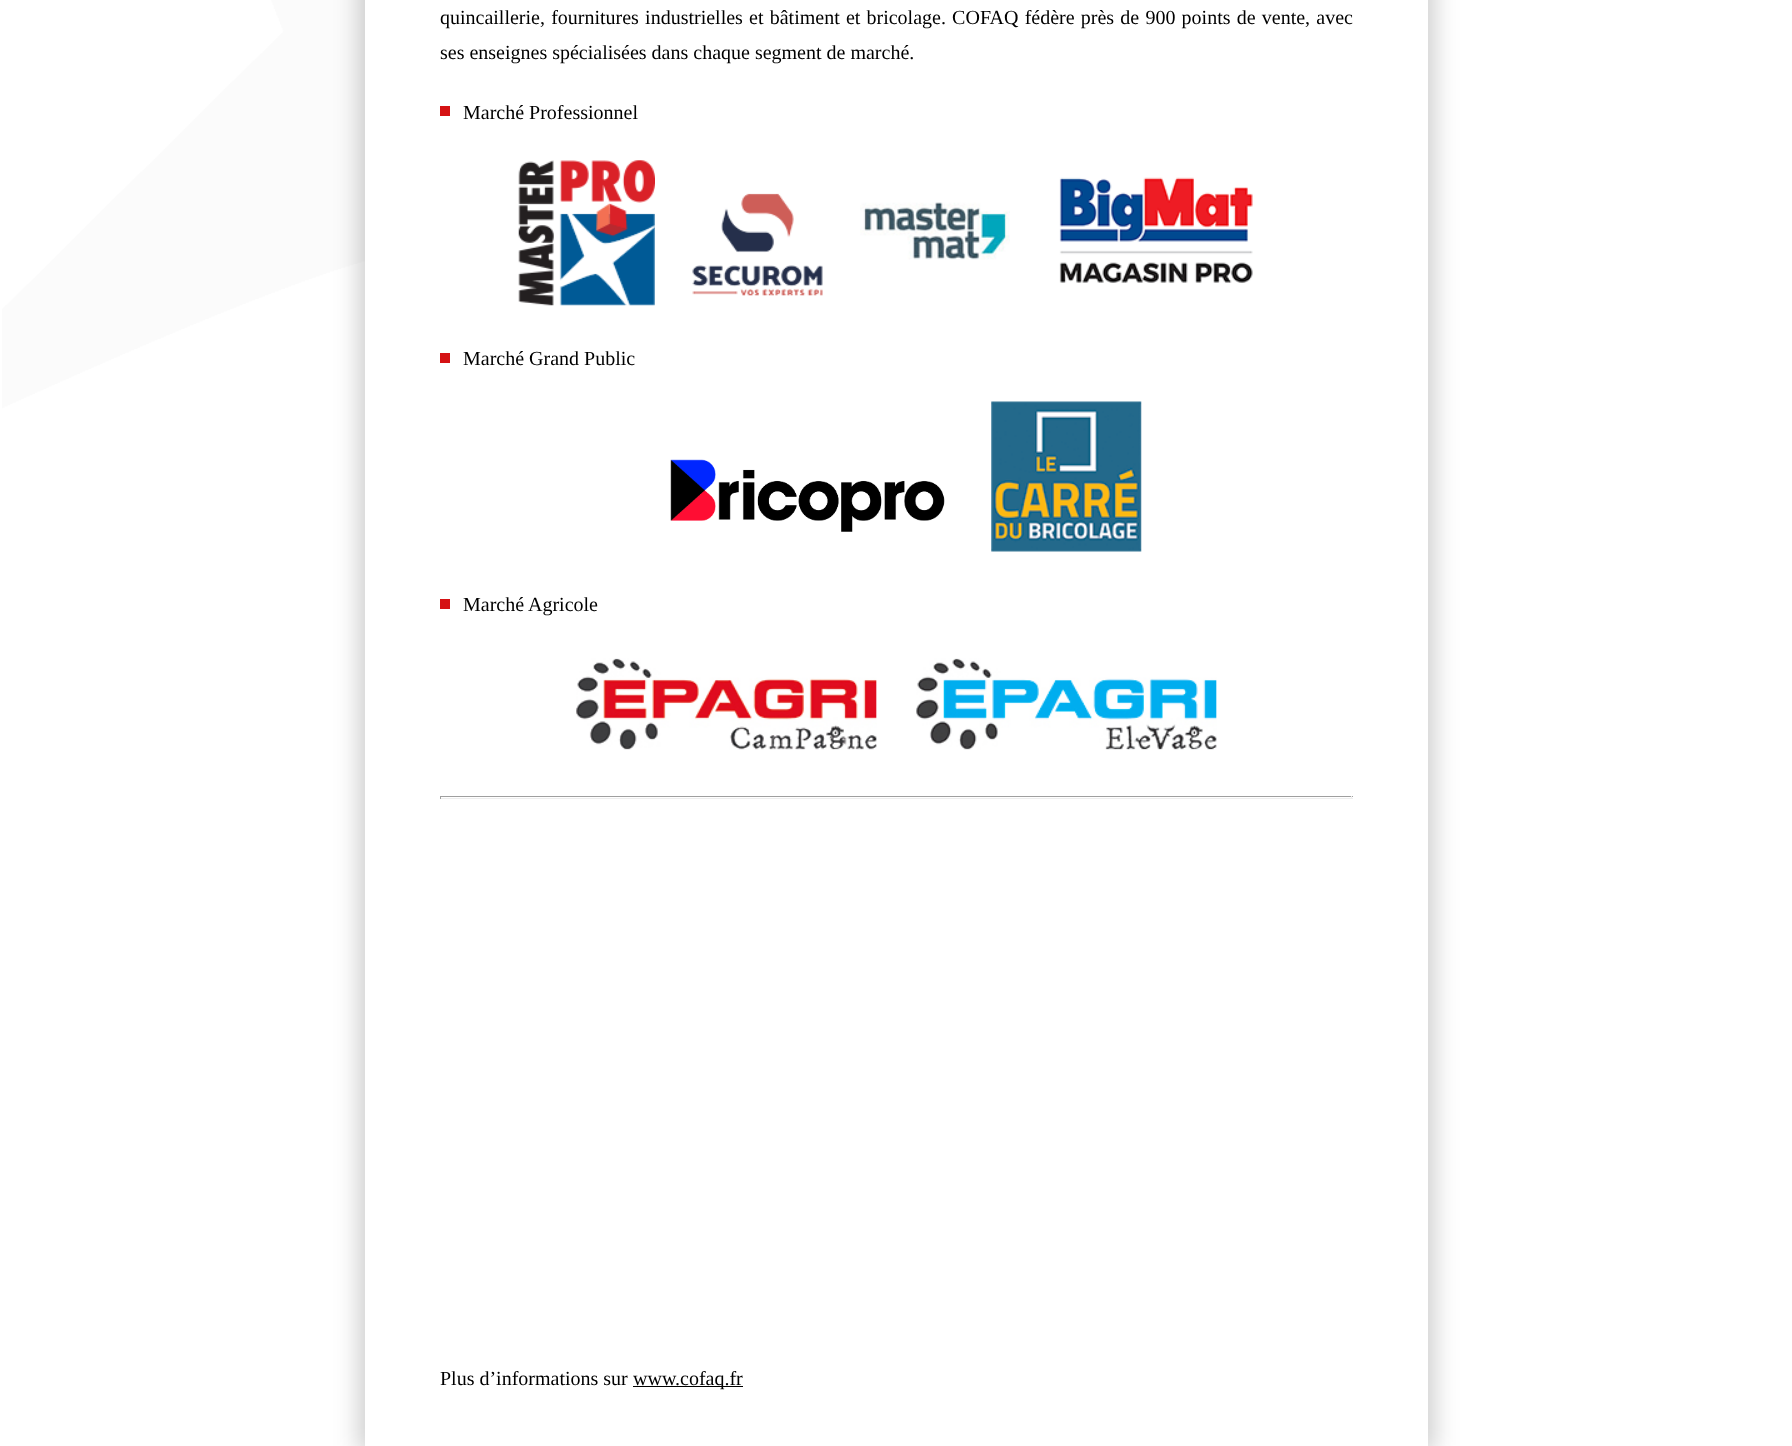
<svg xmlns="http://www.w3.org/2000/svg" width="1792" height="1446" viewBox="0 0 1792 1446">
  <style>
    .t1 { font: 20px Liberation Serif; fill: #000; }
  </style>
  <rect width="100%" height="100%" fill="#fff"/>
  <image x="2" y="0" width="363" height="410" href="images/1.png"/>
  <rect x="359" y="-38" width="1075" height="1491" fill="#00000033" filter="blur(12.5px)"/>
  <rect x="365" y="0" width="1063" height="1446" fill="#fff"/>
  <text x="440" y="24" word-spacing="1.2" class="t1">quincaillerie, fournitures industrielles et bâtiment et bricolage. COFAQ fédère près de 900 points de vente, avec</text>
  <text x="440" y="59" class="t1">ses enseignes spécialisées dans chaque segment de marché.</text>
  <rect x="440" y="106" width="10" height="10" fill="#d51214"/>
  <text x="463" y="119" class="t1">Marché Professionnel</text>
  <image x="518" y="160" width="137" height="146" href="images/2.png"/>
  <image x="692" y="193" width="131" height="103" href="images/3.png"/>
  <image x="860" y="202" width="150" height="58" href="images/4.png"/>
  <image x="1059" y="177" width="194" height="106" href="images/5.png"/>
  <rect x="440" y="353" width="10" height="10" fill="#d51214"/>
  <text x="463" y="365" class="t1">Marché Grand Public</text>
  <image x="670" y="459" width="275" height="73" href="images/6.png"/>
  <image x="991" y="401" width="151" height="151" href="images/7.png"/>
  <rect x="440" y="599" width="10" height="10" fill="#d51214"/>
  <text x="463" y="611" class="t1">Marché Agricole</text>
  <image x="576" y="658" width="301" height="92" href="images/8.png"/>
  <image x="916" y="658" width="301" height="92" href="images/9.png"/>
  <rect x="440" y="796" width="913" height="1" fill="#9f9f9f"/>
  <rect x="1351" y="796" width="1" height="3" fill="#eee"/>
  <rect x="440" y="798" width="913" height="1" fill="#eee"/>
  <rect x="440" y="796" width="1" height="3" fill="#9f9f9f"/>
  <text x="440" y="1385" class="t1">Plus d’informations sur</text>
  <rect x="633" y="1386" width="110" height="1" fill="#000"/>
  <text x="633" y="1385" class="t1">www.cofaq.fr</text>
</svg>
